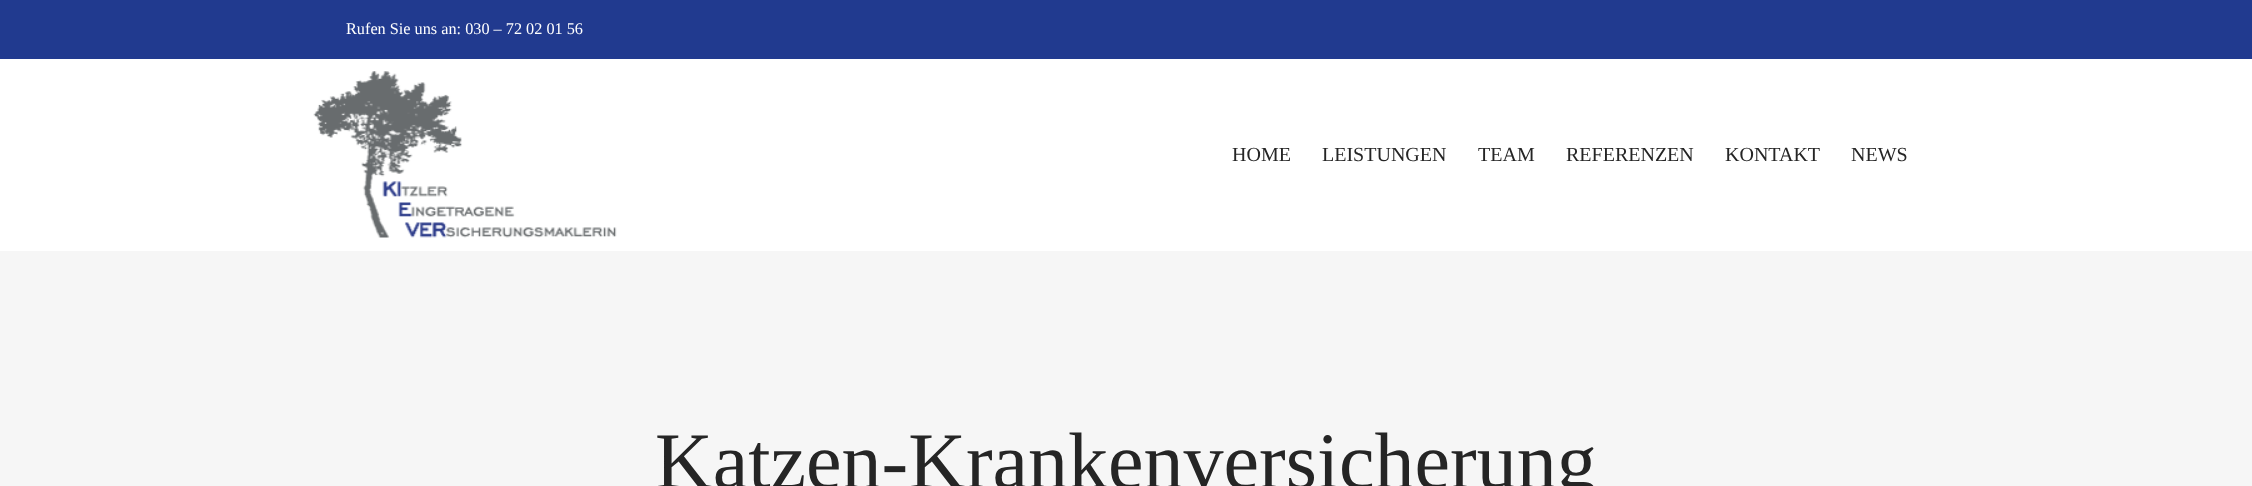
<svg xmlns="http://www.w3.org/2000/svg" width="2252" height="486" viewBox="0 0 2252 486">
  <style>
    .t1 { font: 16.25px Liberation Serif; fill: #fff; }
    .t2 { font: 20px Liberation Serif; fill: #252525; }
    .t3 { font: 80px Liberation Serif; fill: #252525; }
  </style>
  <rect width="100%" height="100%" fill="#fff"/>
  <rect x="0" y="0" width="2252" height="59" fill="#213a8f"/>
  <text x="346" y="34" class="t1">Rufen Sie uns an: 030 – 72 02 01 56</text>
  <image x="313" y="71" width="304" height="167" href="images/1.png"/>
  <text x="1232" y="161" class="t2">HOME</text>
  <text x="1322" y="161" class="t2">LEISTUNGEN</text>
  <text x="1478" y="161" class="t2">TEAM</text>
  <text x="1566" y="161" class="t2">REFERENZEN</text>
  <text x="1725" y="161" class="t2">KONTAKT</text>
  <text x="1851" y="161" class="t2">NEWS</text>
  <rect x="0" y="251" width="2252" height="235" fill="#f6f6f6"/>
  <text x="655" y="488" class="t3">Katzen-Krankenversicherung</text>
</svg>
